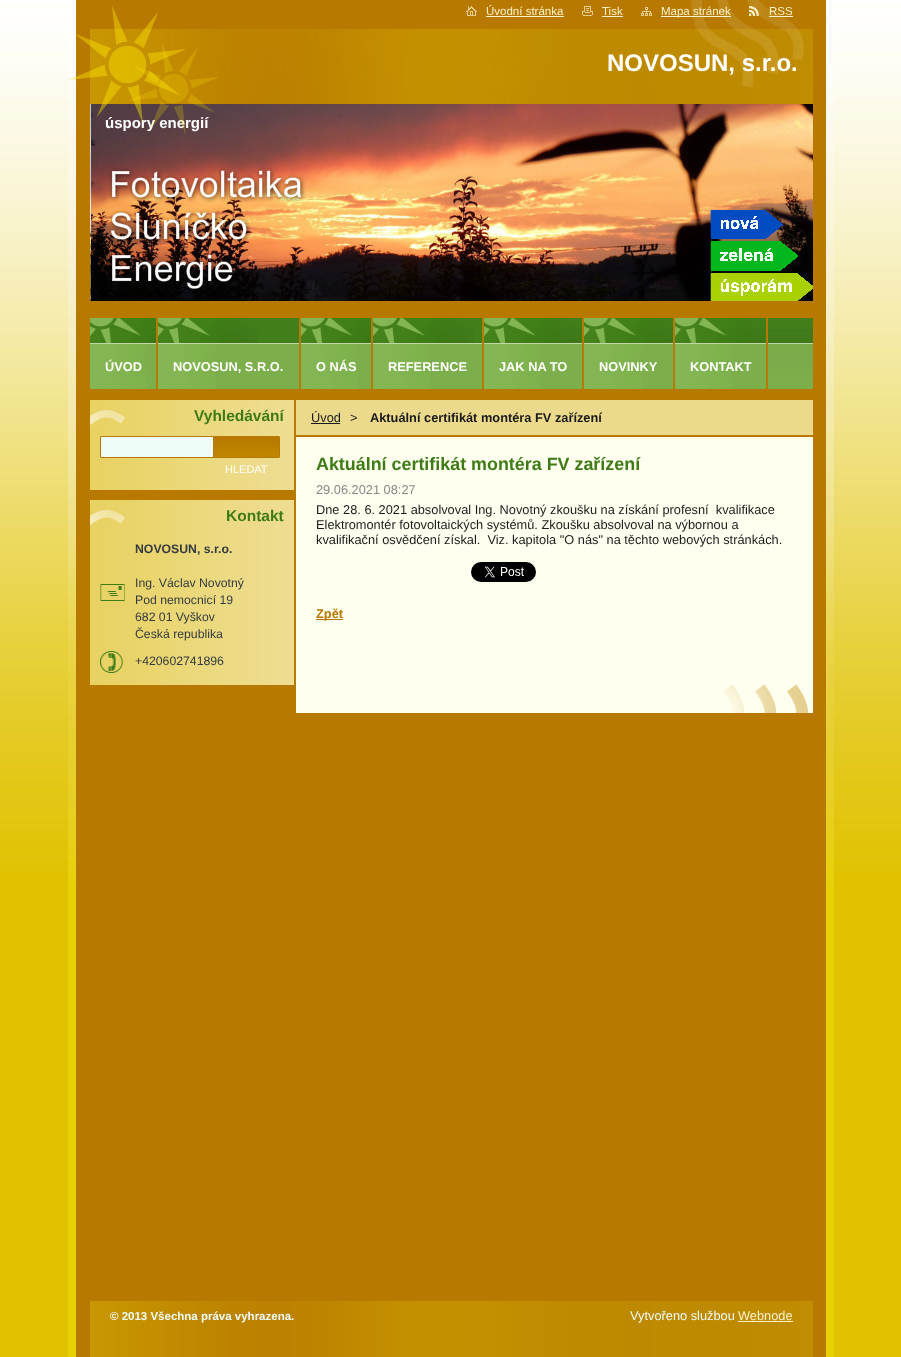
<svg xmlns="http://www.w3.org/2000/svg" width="901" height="1357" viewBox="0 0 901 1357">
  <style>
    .t1 { font: bold 15px Liberation Sans; fill: #fff; }
    .t2 { font: 11.5px Liberation Sans; fill: #f8f2c9; }
    .t3 { font: bold 24px Liberation Sans; fill: #fff; }
    .t4 { font: bold 12.8px Liberation Sans; fill: #fff; }
    .t5 { font: bold 15.5px Liberation Sans; fill: #3e7b17; }
    .t6 { font: 11px Liberation Sans; fill: #fff; }
    .t7 { font: bold 12.25px Liberation Sans; fill: #343a41; }
    .t8 { font: 12.25px Liberation Sans; fill: #343a41; }
    .t9 { font: 12.8px Liberation Sans; fill: #1b1b1b; }
    .t10 { font: bold 12.8px Liberation Sans; fill: #1b1b1b; }
    .t11 { font: bold 17.9px Liberation Sans; fill: #3e7b17; }
    .t12 { font: 12.8px Liberation Sans; fill: #888; }
    .t13 { font: bold 12.8px Liberation Sans; fill: #b77900; }
    .t14 { font: bold 11.5px Liberation Sans; fill: #eefdf8; }
    .t15 { font: 12.8px Liberation Sans; fill: #eefdf8; }
    .t16 { font: 12.8px Liberation Sans; fill: #f8f2c9; }
  </style>
  <rect width="100%" height="100%" fill="#e0c200"/>
  <image x="0" y="0" width="901" height="872" href="images/1.png"/>
  <rect x="68" y="888" width="766" height="469" fill="#e8d100"/>
  <image x="68" y="0" width="766" height="888" href="images/2.png"/>
  <rect x="76" y="0" width="750" height="1357" fill="#b77900"/>
  <image x="690" y="0" width="108" height="29" href="images/3.png"/>
  <image x="90" y="29" width="723" height="75" href="images/9.png"/>
  <image x="90" y="104" width="723" height="197" href="images/10.png"/>
  <text x="105" y="128" class="t1">úspory energií</text>
  <image x="68" y="6" width="151" height="129" href="images/4.png"/>
  <image x="466" y="6" width="11" height="10" href="images/5.png"/>
  <text x="486" y="15" class="t2">Úvodní stránka</text>
  <rect x="486" y="16" width="78" height="1" fill="#f8f2c9"/>
  <image x="582" y="6" width="11" height="10" href="images/6.png"/>
  <text x="602" y="15" class="t2">Tisk</text>
  <rect x="602" y="16" width="21" height="1" fill="#f8f2c9"/>
  <image x="641" y="7" width="11" height="9" href="images/7.png"/>
  <rect x="661" y="16" width="70" height="1" fill="#f8f2c9"/>
  <text x="661" y="15" class="t2">Mapa stránek</text>
  <image x="749" y="6" width="10" height="10" href="images/8.png"/>
  <text x="769" y="15" class="t2">RSS</text>
  <rect x="769" y="16" width="24" height="1" fill="#f8f2c9"/>
  <text x="607" y="71" class="t3">NOVOSUN, s.r.o.</text>
  <image x="768" y="318" width="45" height="71" href="images/11.png"/>
  <image x="90" y="318" width="66" height="25" href="images/12.png"/>
  <rect x="147" y="344" width="9" height="45" fill="#7cae4b"/>
  <image x="90" y="344" width="57" height="45" href="images/13.png"/>
  <rect x="90" y="343" width="66" height="1" fill="#bfd9a6"/>
  <text x="105" y="371" class="t4">ÚVOD</text>
  <rect x="259" y="318" width="40" height="25" fill="#427f1b"/>
  <image x="158" y="318" width="101" height="25" href="images/14.png"/>
  <rect x="216" y="344" width="83" height="45" fill="#7cae4b"/>
  <image x="158" y="344" width="58" height="45" href="images/15.png"/>
  <rect x="158" y="343" width="141" height="1" fill="#bfd9a6"/>
  <text x="173" y="371" class="t4">NOVOSUN, S.R.O.</text>
  <image x="301" y="318" width="70" height="25" href="images/16.png"/>
  <rect x="358" y="344" width="13" height="45" fill="#7cae4b"/>
  <image x="301" y="344" width="57" height="45" href="images/17.png"/>
  <rect x="301" y="343" width="70" height="1" fill="#bfd9a6"/>
  <text x="316" y="371" class="t4">O NÁS</text>
  <rect x="474" y="318" width="8" height="25" fill="#427f1b"/>
  <image x="373" y="318" width="101" height="25" href="images/14.png"/>
  <rect x="431" y="344" width="51" height="45" fill="#7cae4b"/>
  <image x="373" y="344" width="58" height="45" href="images/15.png"/>
  <rect x="373" y="343" width="109" height="1" fill="#bfd9a6"/>
  <text x="388" y="371" class="t4">REFERENCE</text>
  <image x="484" y="318" width="98" height="25" href="images/18.png"/>
  <rect x="541" y="344" width="41" height="45" fill="#7cae4b"/>
  <image x="484" y="344" width="57" height="45" href="images/19.png"/>
  <rect x="484" y="343" width="98" height="1" fill="#bfd9a6"/>
  <text x="499" y="371" class="t4">JAK NA TO</text>
  <image x="584" y="318" width="89" height="25" href="images/20.png"/>
  <rect x="642" y="344" width="31" height="45" fill="#7cae4b"/>
  <image x="584" y="344" width="58" height="45" href="images/21.png"/>
  <rect x="584" y="343" width="89" height="1" fill="#bfd9a6"/>
  <text x="599" y="371" class="t4">NOVINKY</text>
  <image x="675" y="318" width="91" height="25" href="images/22.png"/>
  <rect x="732" y="344" width="34" height="45" fill="#7cae4b"/>
  <image x="675" y="344" width="57" height="45" href="images/23.png"/>
  <rect x="675" y="343" width="91" height="1" fill="#bfd9a6"/>
  <text x="690" y="371" class="t4">KONTAKT</text>
  <image x="90" y="400" width="204" height="90" href="images/24.png"/>
  <image x="90" y="409" width="36" height="16" href="images/25.png"/>
  <text x="194" y="421" class="t5">Vyhledávání</text>
  <image x="100" y="436" width="180" height="22" href="images/26.png"/>
  <rect x="101" y="437" width="112" height="20" fill="#eefdf8"/>
  <text x="225" y="473" class="t6">HLEDAT</text>
  <image x="90" y="500" width="204" height="185" href="images/27.png"/>
  <image x="90" y="509" width="36" height="16" href="images/25.png"/>
  <text x="226" y="521" class="t5">Kontakt</text>
  <image x="100" y="584" width="25" height="17" href="images/28.png"/>
  <text x="135" y="553" class="t7">NOVOSUN, s.r.o.</text>
  <text x="135" y="587" class="t8">Ing. Václav Novotný</text>
  <text x="135" y="604" class="t8">Pod nemocnicí 19</text>
  <text x="135" y="621" class="t8">682 01 Vyškov</text>
  <text x="135" y="638" class="t8">Česká republika</text>
  <image x="100" y="651" width="23" height="22" href="images/29.png"/>
  <text x="135" y="665" class="t8">+420602741896</text>
  <rect x="296" y="400" width="517" height="35" fill="#ecda8c"/>
  <text x="311" y="422" class="t9">Úvod</text>
  <rect x="311" y="423" width="29" height="1" fill="#1b1b1b"/>
  <text x="350" y="422" class="t9">&gt;</text>
  <text x="370" y="422" class="t10">Aktuální certifikát montéra FV zařízení</text>
  <rect x="296" y="437" width="517" height="276" fill="#ffffef"/>
  <image x="723" y="684" width="86" height="29" href="images/30.png"/>
  <text x="316" y="470" class="t11">Aktuální certifikát montéra FV zařízení</text>
  <text x="316" y="494" class="t12">29.06.2021 08:27</text>
  <text x="316" y="514" class="t9" xml:space="preserve">Dne 28. 6. 2021 absolvoval Ing. Novotný zkoušku na získání profesní  kvalifikace</text>
  <text x="316" y="529" class="t9">Elektromontér fotovoltaických systémů. Zkoušku absolvoval na výbornou a</text>
  <text x="316" y="544" class="t9" xml:space="preserve">kvalifikační osvědčení získal.  Viz. kapitola "O nás" na těchto webových stránkách.</text>
  <image x="471" y="562" width="65" height="20" href="images/31.png"/>
  <rect x="316" y="619" width="27" height="1" fill="#b77900"/>
  <text x="316" y="618" class="t13">Zpět</text>
  <image x="90" y="1301" width="723" height="56" href="images/32.png"/>
  <text x="110" y="1320" class="t14">© 2013 Všechna práva vyhrazena.</text>
  <text x="630" y="1320" class="t15">Vytvořeno službou</text>
  <text x="738" y="1320" class="t16">Webnode</text>
  <rect x="738" y="1321" width="55" height="1" fill="#f8f2c9"/>
</svg>
